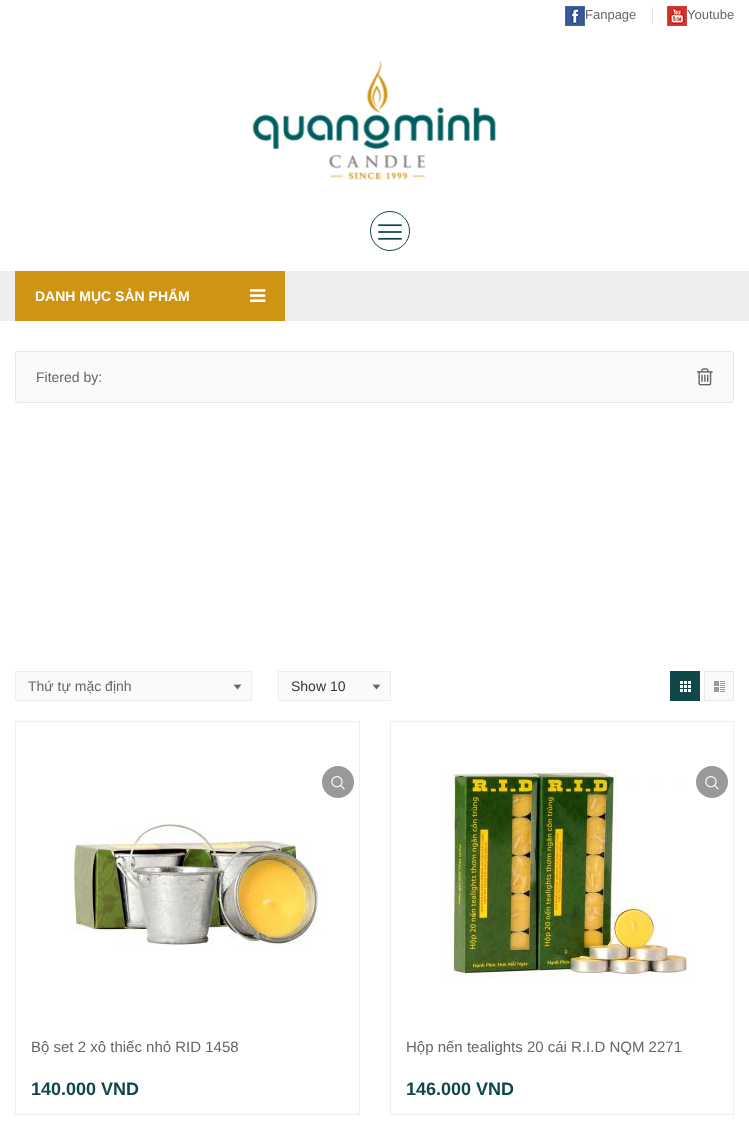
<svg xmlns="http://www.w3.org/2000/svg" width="749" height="1129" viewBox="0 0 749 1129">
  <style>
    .t1 { font: 13px Liberation Sans; fill: #666; }
    .t2 { font: bold 14px Liberation Sans; fill: #fff; }
    .t3 { font: 14px Liberation Sans; fill: #666; }
    .t4 { font: 14px Liberation Sans; fill: #333; }
    .t5 { font: 15px Liberation Sans; fill: #666; }
    .t6 { font: bold 18px Liberation Sans; fill: #104748; }
  </style>
  <rect width="100%" height="100%" fill="#fff"/>
  <image x="565" y="6" width="20" height="20" href="images/1.png"/>
  <text x="585" y="19" class="t1">Fanpage</text>
  <rect x="652" y="7" width="1" height="16" fill="#e6e6e6"/>
  <image x="667" y="6" width="20" height="20" href="images/2.png"/>
  <text x="687" y="19" class="t1">Youtube</text>
  <image x="252" y="60" width="244" height="120" href="images/3.png"/>
  <circle cx="390" cy="231" r="19.5" fill="none" stroke="#104748"/>
  <image x="378" y="224" width="24" height="16" href="images/4.png"/>
  <rect x="0" y="271" width="749" height="50" fill="#eee"/>
  <rect x="15" y="271" width="270" height="50" fill="#cf9412"/>
  <text x="35" y="301" class="t2">DANH MỤC SẢN PHẨM</text>
  <image x="250" y="289" width="16" height="13" href="images/5.png"/>
  <rect x="15.5" y="351.5" width="718" height="51" rx="2.5" fill="#fafafa" stroke="#e6e6e6"/>
  <text x="36" y="382" class="t3">Fitered by:</text>
  <image x="697" y="368" width="16" height="18" href="images/6.png"/>
  <rect x="16" y="672" width="235" height="28" fill="#fafafa"/>
  <image x="233" y="684" width="9" height="6" href="images/7.png"/>
  <rect x="15.5" y="671.5" width="236" height="29" fill="none" stroke="#eee"/>
  <text x="28" y="691" class="t3">Thứ tự mặc định</text>
  <rect x="279" y="672" width="111" height="28" fill="#fafafa"/>
  <image x="372" y="684" width="9" height="6" href="images/7.png"/>
  <rect x="278.5" y="671.5" width="112" height="29" fill="none" stroke="#eee"/>
  <text x="291" y="691" class="t4">Show 10</text>
  <rect x="670" y="671" width="30" height="30" fill="#104748"/>
  <rect x="680" y="681" width="3" height="3" fill="#fff"/>
  <rect x="684" y="681" width="3" height="3" fill="#fff"/>
  <rect x="688" y="681" width="3" height="3" fill="#fff"/>
  <rect x="680" y="685" width="3" height="3" fill="#fff"/>
  <rect x="684" y="685" width="3" height="3" fill="#fff"/>
  <rect x="688" y="685" width="3" height="3" fill="#fff"/>
  <rect x="680" y="689" width="3" height="3" fill="#fff"/>
  <rect x="684" y="689" width="3" height="3" fill="#fff"/>
  <rect x="688" y="689" width="3" height="3" fill="#fff"/>
  <rect x="704.5" y="671.5" width="29" height="29" fill="#fafafa" stroke="#e8e8e8"/>
  <rect x="714" y="681" width="5" height="5" fill="#999"/>
  <rect x="720" y="681" width="5" height="1" fill="#999"/>
  <rect x="720" y="683" width="5" height="1" fill="#999"/>
  <rect x="720" y="685" width="5" height="1" fill="#999"/>
  <rect x="714" y="687" width="5" height="5" fill="#999"/>
  <rect x="720" y="687" width="5" height="1" fill="#999"/>
  <rect x="720" y="689" width="5" height="1" fill="#999"/>
  <rect x="720" y="691" width="5" height="1" fill="#999"/>
  <rect x="15.5" y="721.5" width="344" height="393" fill="none" stroke="#eee"/>
  <circle cx="338" cy="782" r="16" fill="#999"/>
  <image x="331" y="776" width="14" height="14" href="images/8.png"/>
  <image x="69" y="818" width="256" height="128" href="images/9.png"/>
  <text x="31" y="1052" class="t5">Bộ set 2 xô thiếc nhỏ RID 1458</text>
  <text x="31" y="1095" class="t6">140.000 VND</text>
  <rect x="390.5" y="721.5" width="343" height="393" fill="none" stroke="#eee"/>
  <image x="444" y="770" width="246" height="208" href="images/10.png"/>
  <circle cx="712" cy="782" r="16" fill="#999"/>
  <image x="705" y="776" width="14" height="14" href="images/8.png"/>
  <text x="406" y="1052" class="t5">Hộp nến tealights 20 cái R.I.D NQM 2271</text>
  <text x="406" y="1095" class="t6">146.000 VND</text>
</svg>
